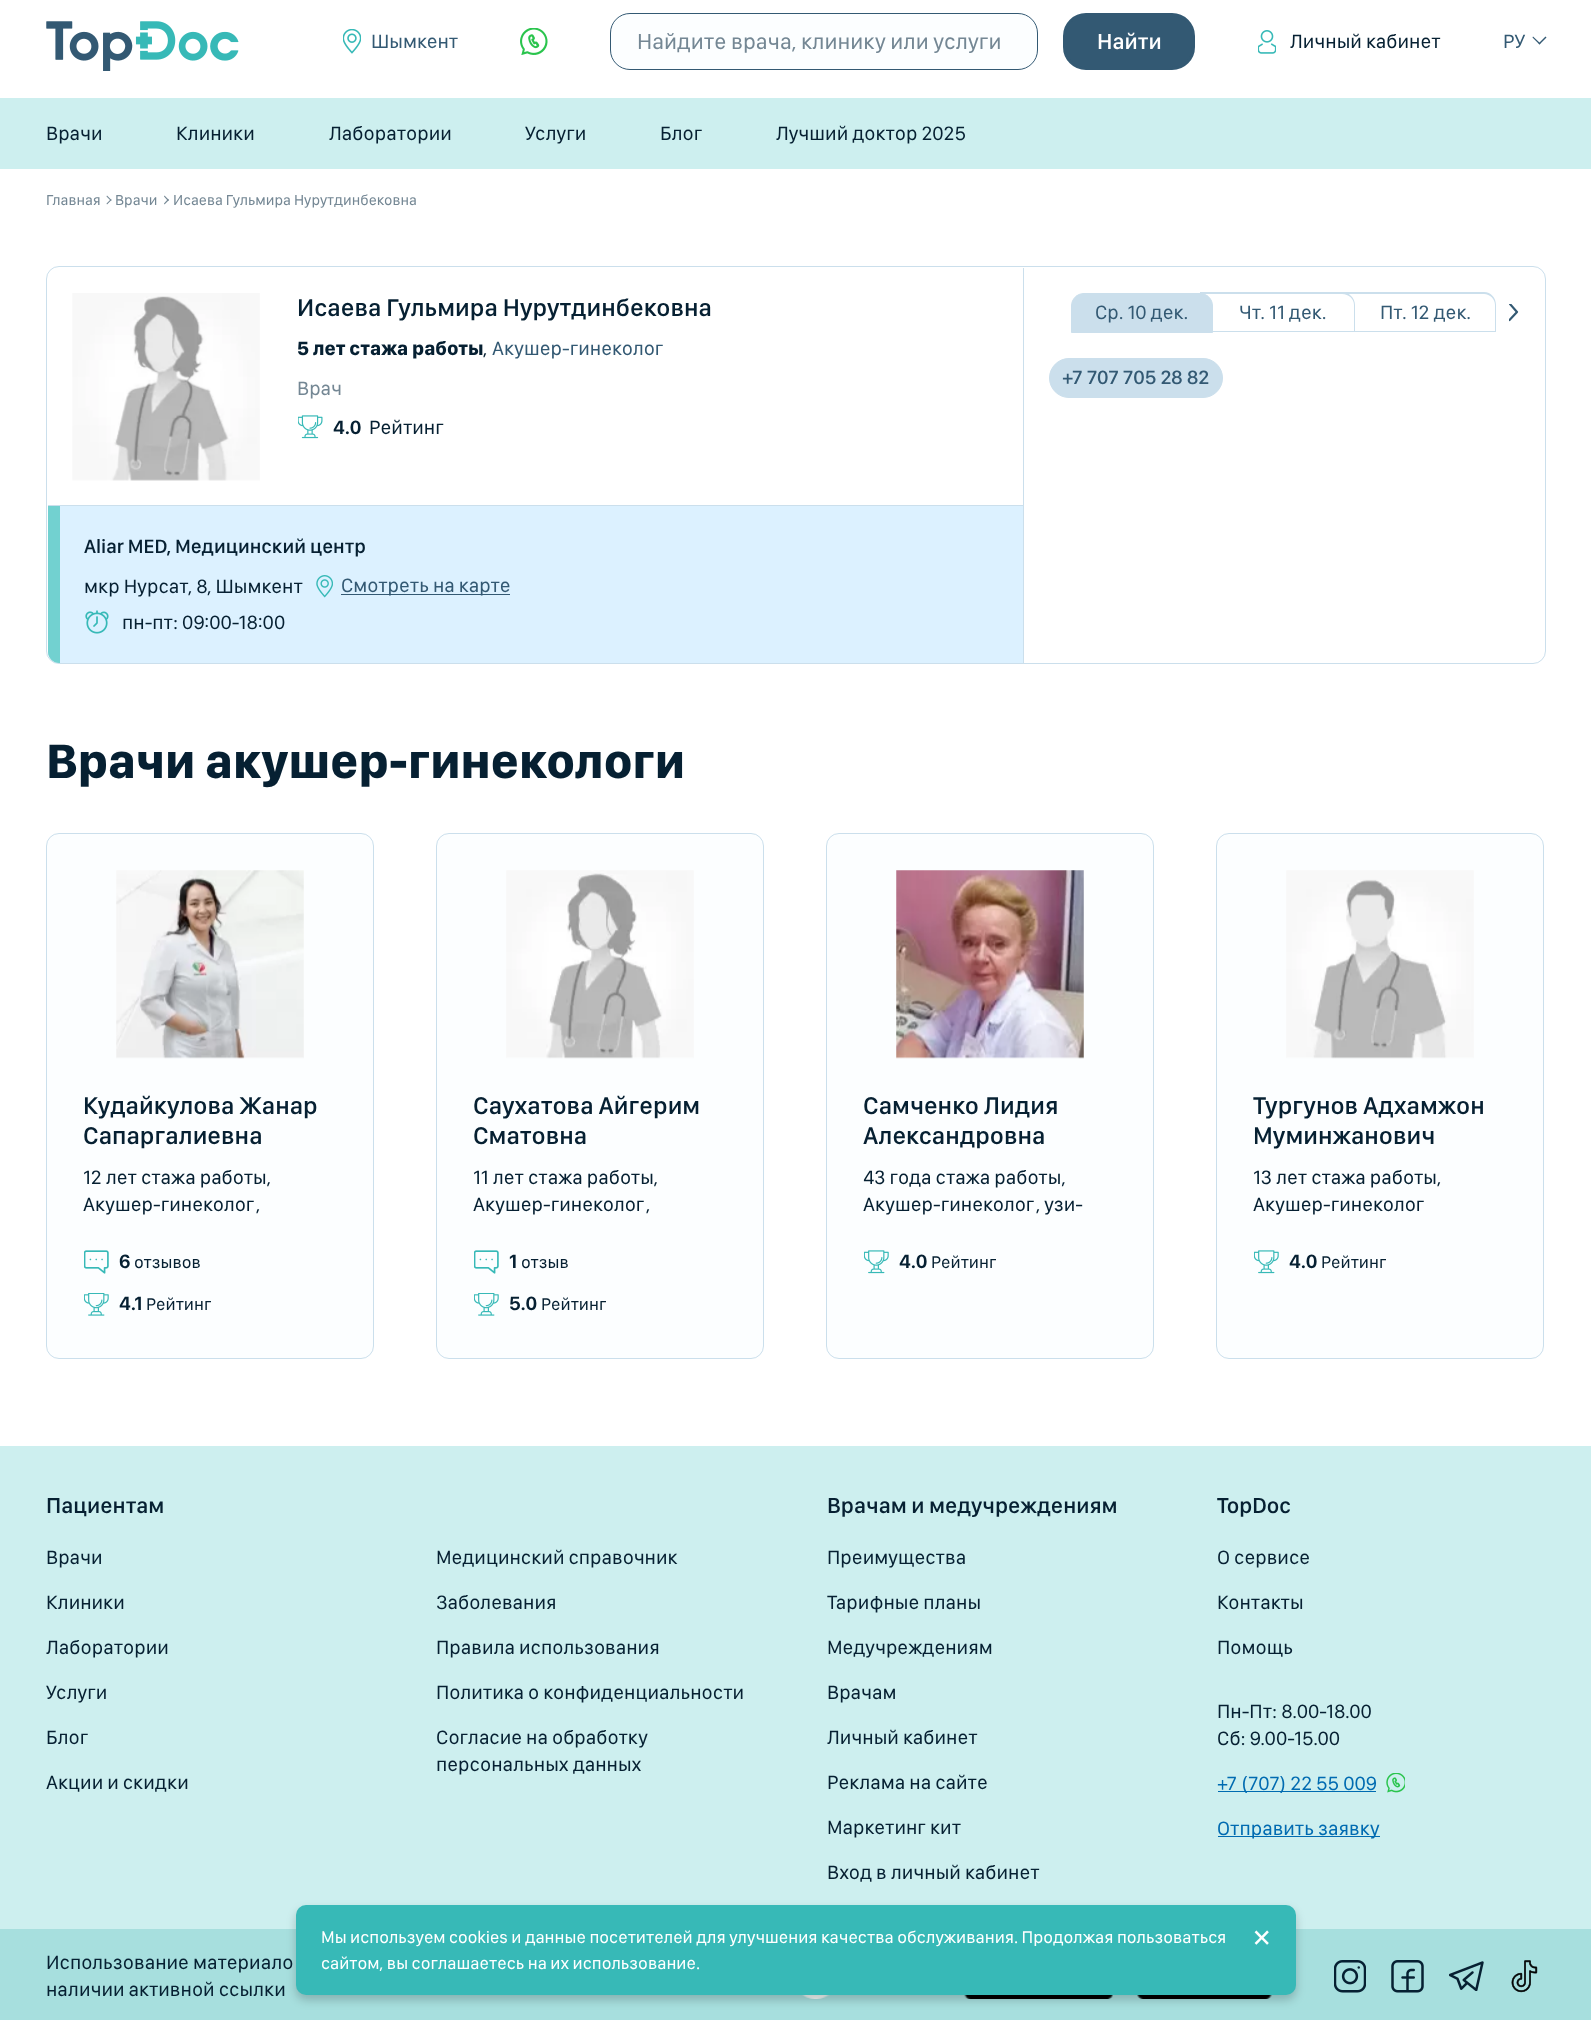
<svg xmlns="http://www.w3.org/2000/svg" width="1591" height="2020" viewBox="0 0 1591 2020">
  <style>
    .t1 { font: 20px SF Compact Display; fill: #335973; }
    .t2 { font: 22.5px SF Compact Display; fill: #748794; }
    .t3 { font: 500 22.5px SF Compact Display; fill: #fff; }
    .t4 { font: 20px SF Compact Display; fill: #062032; }
    .t5 { font: 15px SF Compact Display; fill: #748794; }
    .t6 { font: 500 25px SF Compact Display; fill: #062032; }
    .t7 { font: bold 20px SF Compact Display; fill: #062032; }
    .t8 { font: 20px SF Compact Display; fill: #748794; }
    .t9 { font: 600 20px SF Compact Display; fill: #062032; }
    .t10 { font: 500 20px SF Compact Display; fill: #062032; }
    .t11 { font: 500 20px SF Compact Display; fill: #335973; }
    .t12 { font: bold 50px SF Compact Display; fill: #062032; }
    .t13 { font: 17.5px SF Compact Display; fill: #062032; }
    .t14 { font: 500 22.5px SF Compact Display; fill: #062032; }
    .t15 { font: 20px SF Compact Display; fill: #006bb1; }
    .t16 { font: 17.5px SF Compact Display; fill: #fff; }
    .t17 { font: 35px SF Compact Display; fill: #fff; }
  </style>
  <defs>
    <clipPath id="clip1"><rect x="1509" y="304" width="11" height="19"/></clipPath>
  </defs>
  <rect width="100%" height="100%" fill="#fff"/>
  <image x="46" y="21" width="193" height="50" href="images/1.png"/>
  <image x="343" y="29" width="18" height="25" href="images/2.png"/>
  <text x="371" y="48" class="t1">Шымкент</text>
  <image x="520" y="28" width="28" height="27" href="images/3.png"/>
  <rect x="610.5" y="13.5" width="427" height="56" rx="19.5" fill="#fcfeff" stroke="#335973"/>
  <text x="637" y="49" class="t2">Найдите врача, клинику или услуги</text>
  <rect x="1064.5" y="14.5" width="129" height="54" rx="21.5" fill="#335973" stroke="#335973" stroke-width="3"/>
  <text x="1097" y="49" class="t3">Найти</text>
  <image x="1258" y="30" width="18" height="24" href="images/4.png"/>
  <text x="1290" y="48" class="t4">Личный кабинет</text>
  <text x="1503" y="48" class="t1">РУ</text>
  <path d="M1545.5 36.5L1546.5 37.5L1539.5 44.5L1538.5 43.5Z" fill="#335973"/>
  <path d="M1533 36.5L1540.5 43.5L1539.5 44.5L1532.5 37.5Z" fill="#335973"/>
  <rect x="0" y="98" width="1591" height="71" fill="#cdefef"/>
  <text x="46" y="140" class="t4">Врачи</text>
  <text x="176" y="140" class="t4">Клиники</text>
  <text x="329" y="140" class="t4">Лаборатории</text>
  <text x="525" y="140" class="t4">Услуги</text>
  <text x="660" y="140" class="t4">Блог</text>
  <text x="776" y="140" class="t4">Лучший доктор 2025</text>
  <text x="46" y="205" class="t5">Главная</text>
  <path d="M106.5 196.5L107 195.5L111.5 200L111 201Z" fill="#748794"/>
  <path d="M106.5 203.5L111 199L111.5 200L107 204.5ZM164 196.5L164.5 195.5L169 200L168 201Z" fill="#748794"/>
  <text x="115" y="205" class="t5">Врачи</text>
  <path d="M164 203.5L168 199L169 200L164.5 204.5Z" fill="#748794"/>
  <text x="173" y="205" class="t5">Исаева Гульмира Нурутдинбековна</text>
  <rect x="46.5" y="266.5" width="1499" height="397" rx="12.5" fill="none" stroke="#cbdfec"/>
  <image x="72" y="293" width="188" height="188" href="images/5.png"/>
  <text x="297" y="316" class="t6">Исаева Гульмира Нурутдинбековна</text>
  <text x="297" y="355" class="t7">5 лет стажа работы</text>
  <text x="483" y="355" class="t4">,</text>
  <text x="492" y="355" class="t1">Акушер-гинеколог</text>
  <text x="297" y="395" class="t8">Врач</text>
  <image x="298" y="415" width="25" height="24" href="images/6.png"/>
  <text x="333" y="434" class="t9">4.0</text>
  <text x="369" y="434" class="t4">Рейтинг</text>
  <rect x="48" y="505" width="975" height="1" fill="#cbdfec"/>
  <path d="M48 506H1023V663H59C53 663 48 658 48 652Z" fill="#dcf1ff"/>
  <path d="M48 506H60V663H59C53 663 48 658 48 652Z" fill="#72d1d0"/>
  <text x="84" y="553" class="t10">Aliar MED, Медицинский центр</text>
  <text x="84" y="593" class="t4">мкр Нурсат, 8, Шымкент</text>
  <image x="316" y="575" width="17" height="23" href="images/7.png"/>
  <rect x="341" y="594" width="169" height="1" fill="#335973"/>
  <text x="341" y="592" class="t1">Смотреть на карте</text>
  <image x="85" y="610" width="24" height="24" href="images/8.png"/>
  <text x="122" y="629" class="t4">пн-пт: 09:00-18:00</text>
  <rect x="1023" y="268" width="1" height="395" fill="#cbdfec"/>
  <path d="M1342 292H1484C1491 292 1496 298 1496 305V332H1342ZM1342 294H1484C1490 294 1495 299 1495 305V331H1342Z" fill="#cbdfec" fill-rule="evenodd"/>
  <path d="M1200 292H1342C1349 292 1355 298 1355 305V332H1200ZM1200 294H1342C1349 294 1354 299 1354 305V331H1200Z" fill="#cbdfec" fill-rule="evenodd"/>
  <path d="M1084 293.5H1200C1207 293.5 1212.5 299 1212.5 306V332.5H1071.5V306C1071.5 299 1077 293.5 1084 293.5Z" fill="#cbdfec" stroke="#cbdfec"/>
  <text x="1095" y="319" class="t1">Ср. 10 дек.</text>
  <text x="1239" y="319" class="t1">Чт. 11 дек.</text>
  <text x="1380" y="319" class="t1">Пт. 12 дек.</text>
  <g clip-path="url(#clip1)">
    <path d="M1509.5 303.5L1517 312L1509.5 320" fill="none" stroke="#335973" stroke-width="2.2" stroke-linecap="round" stroke-linejoin="round"/>
  </g>
  <rect x="1049.5" y="358.5" width="173" height="39" rx="19.5" fill="#cbdfec" stroke="#cbdfec"/>
  <text x="1062" y="384" class="t11">+7 707 705 28 82</text>
  <text x="46" y="778" class="t12">Врачи акушер-гинекологи</text>
  <rect x="46.5" y="833.5" width="327" height="525" rx="12.5" fill="#fcfeff" stroke="#cbdfec"/>
  <image x="116" y="870" width="188" height="189" href="images/9.png"/>
  <text x="83" y="1114" class="t6">Кудайкулова Жанар</text>
  <text x="83" y="1144" class="t6">Сапаргалиевна</text>
  <text x="83" y="1184" class="t4">12 лет стажа работы,</text>
  <text x="83" y="1211" class="t4">Акушер-гинеколог</text>
  <text x="256" y="1211" class="t4">,</text>
  <image x="84" y="1250" width="25" height="24" href="images/10.png"/>
  <text x="119" y="1268" class="t9">6</text>
  <text x="134" y="1268" class="t13">отзывов</text>
  <image x="84" y="1293" width="25" height="23" href="images/11.png"/>
  <text x="119" y="1310" class="t9">4.1</text>
  <text x="146" y="1310" class="t13">Рейтинг</text>
  <rect x="436.5" y="833.5" width="327" height="525" rx="12.5" fill="#fcfeff" stroke="#cbdfec"/>
  <image x="506" y="870" width="188" height="189" href="images/12.png"/>
  <text x="473" y="1114" class="t6">Саухатова Айгерим</text>
  <text x="473" y="1144" class="t6">Сматовна</text>
  <text x="473" y="1184" class="t4">11 лет стажа работы,</text>
  <text x="473" y="1211" class="t4">Акушер-гинеколог</text>
  <text x="646" y="1211" class="t4">,</text>
  <image x="474" y="1250" width="25" height="24" href="images/10.png"/>
  <text x="509" y="1268" class="t9">1</text>
  <text x="521" y="1268" class="t13">отзыв</text>
  <image x="474" y="1293" width="25" height="23" href="images/11.png"/>
  <text x="509" y="1310" class="t9">5.0</text>
  <text x="541" y="1310" class="t13">Рейтинг</text>
  <rect x="826.5" y="833.5" width="327" height="525" rx="12.5" fill="#fcfeff" stroke="#cbdfec"/>
  <image x="896" y="870" width="188" height="189" href="images/13.png"/>
  <text x="863" y="1114" class="t6">Самченко Лидия</text>
  <text x="863" y="1144" class="t6">Александровна</text>
  <text x="863" y="1184" class="t4">43 года стажа работы,</text>
  <text x="863" y="1211" class="t4">Акушер-гинеколог</text>
  <text x="1036" y="1211" class="t4">, узи-</text>
  <image x="864" y="1250" width="25" height="24" href="images/14.png"/>
  <text x="899" y="1268" class="t9">4.0</text>
  <text x="931" y="1268" class="t13">Рейтинг</text>
  <rect x="1216.5" y="833.5" width="327" height="525" rx="12.5" fill="#fcfeff" stroke="#cbdfec"/>
  <image x="1286" y="870" width="188" height="189" href="images/15.png"/>
  <text x="1253" y="1114" class="t6">Тургунов Адхамжон</text>
  <text x="1253" y="1144" class="t6">Муминжанович</text>
  <text x="1253" y="1184" class="t4">13 лет стажа работы,</text>
  <text x="1253" y="1211" class="t4">Акушер-гинеколог</text>
  <image x="1254" y="1250" width="25" height="24" href="images/14.png"/>
  <text x="1289" y="1268" class="t9">4.0</text>
  <text x="1321" y="1268" class="t13">Рейтинг</text>
  <rect x="0" y="1446" width="1591" height="483" fill="#cdefef"/>
  <text x="46" y="1513" class="t14">Пациентам</text>
  <text x="46" y="1564" class="t4">Врачи</text>
  <text x="436" y="1564" class="t4">Медицинский справочник</text>
  <text x="46" y="1609" class="t4">Клиники</text>
  <text x="436" y="1609" class="t4">Заболевания</text>
  <text x="46" y="1654" class="t4">Лаборатории</text>
  <text x="436" y="1654" class="t4">Правила использования</text>
  <text x="46" y="1699" class="t4">Услуги</text>
  <text x="436" y="1699" class="t4">Политика о конфиденциальности</text>
  <text x="46" y="1744" class="t4">Блог</text>
  <text x="436" y="1744" class="t4">Согласие на обработку</text>
  <text x="436" y="1771" class="t4">персональных данных</text>
  <text x="46" y="1789" class="t4">Акции и скидки</text>
  <text x="827" y="1513" class="t14">Врачам и медучреждениям</text>
  <text x="827" y="1564" class="t4">Преимущества</text>
  <text x="827" y="1609" class="t4">Тарифные планы</text>
  <text x="827" y="1654" class="t4">Медучреждениям</text>
  <text x="827" y="1699" class="t4">Врачам</text>
  <text x="827" y="1744" class="t4">Личный кабинет</text>
  <text x="827" y="1789" class="t4">Реклама на сайте</text>
  <text x="827" y="1834" class="t4">Маркетинг кит</text>
  <text x="827" y="1879" class="t4">Вход в личный кабинет</text>
  <text x="1217" y="1513" class="t14">TopDoc</text>
  <text x="1217" y="1564" class="t4">О сервисе</text>
  <text x="1217" y="1609" class="t4">Контакты</text>
  <text x="1217" y="1654" class="t4">Помощь</text>
  <text x="1217" y="1718" class="t4">Пн-Пт: 8.00-18.00</text>
  <text x="1217" y="1745" class="t4">Сб: 9.00-15.00</text>
  <rect x="1218" y="1791" width="158" height="1" fill="#006bb1"/>
  <text x="1217" y="1790" class="t15">+7 (707) 22 55 009</text>
  <image x="1386" y="1773" width="19" height="20" href="images/16.png"/>
  <rect x="1218" y="1836" width="162" height="1" fill="#006bb1"/>
  <text x="1217" y="1835" class="t15">Отправить заявку</text>
  <rect x="0" y="1929" width="1591" height="91" fill="#a7dfde"/>
  <text x="46" y="1969" class="t4">Использование материало</text>
  <text x="46" y="1996" class="t4">наличии активной ссылки</text>
  <image x="1334" y="1960" width="32" height="33" href="images/17.png"/>
  <image x="1391" y="1960" width="33" height="33" href="images/18.png"/>
  <image x="1449" y="1961" width="35" height="30" href="images/19.png"/>
  <image x="1511" y="1960" width="27" height="33" href="images/20.png"/>
  <image x="801" y="1995" width="29" height="4" href="images/21.png"/>
  <image x="964" y="1995" width="149" height="4" href="images/22.png"/>
  <image x="1137" y="1995" width="135" height="4" href="images/23.png"/>
  <rect x="296" y="1910" width="1000" height="90" rx="10" fill="#00000033" filter="blur(5px)"/>
  <rect x="296" y="1905" width="1000" height="90" rx="10" fill="#37b9b7"/>
  <text x="321" y="1943" class="t16">Мы используем cookies и данные посетителей для улучшения качества обслуживания. Продолжая пользоваться</text>
  <text x="321" y="1969" class="t16">сайтом, вы соглашаетесь на их использование.</text>
  <text x="1252" y="1946" class="t17">×</text>
</svg>
